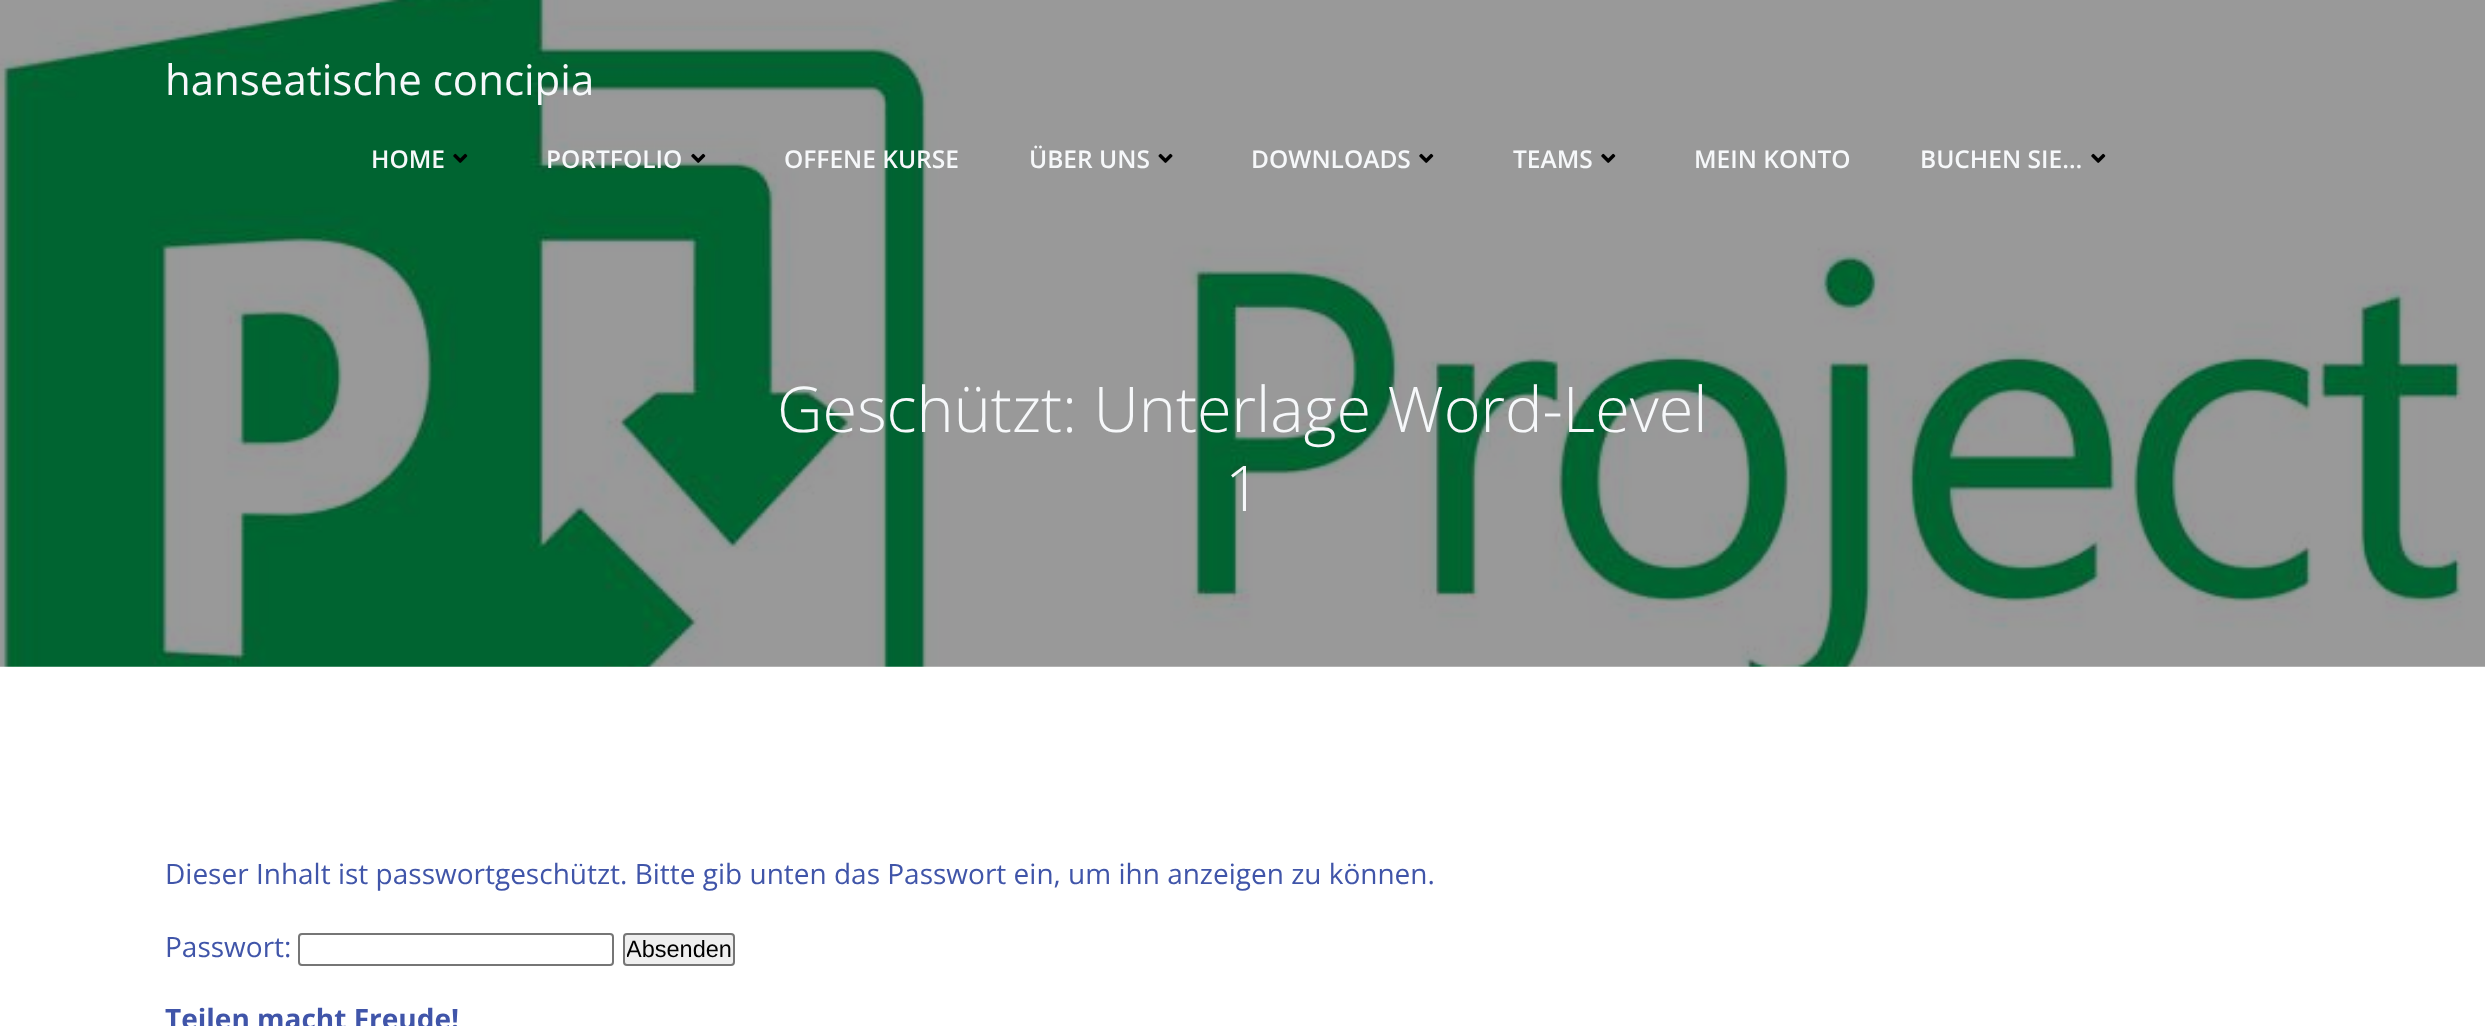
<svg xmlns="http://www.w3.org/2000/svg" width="2485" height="1026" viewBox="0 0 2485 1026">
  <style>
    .t1 { font: 42px Open Sans; fill: #f6f8fa; }
    .t2 { font: 600 24.5px Open Sans; fill: #f6f8fa; }
    .t3 { font: 300 63px Open Sans; fill: #f6f8fa; }
    .t4 { font: 28px Open Sans; fill: #4055a9; }
    .t5 { font: 23.5px Liberation Sans; fill: #000; }
    .t6 { font: bold 28px Open Sans; fill: #4055a9; }
  </style>
  <defs>
    <clipPath id="clip1"><rect x="627" y="936" width="105" height="27"/></clipPath>
  </defs>
  <rect width="100%" height="100%" fill="#fff"/>
  <image x="0" y="0" width="2485" height="667" href="images/5.png"/>
  <text x="165" y="95" class="t1">hanseatische concipia</text>
  <text x="371" y="168" class="t2">HOME</text>
  <image x="453" y="153" width="15" height="10" href="images/1.png"/>
  <text x="546" y="168" class="t2">PORTFOLIO</text>
  <image x="691" y="153" width="15" height="10" href="images/2.png"/>
  <text x="784" y="168" class="t2">OFFENE KURSE</text>
  <text x="1029" y="168" class="t2">ÜBER UNS</text>
  <image x="1158" y="153" width="15" height="10" href="images/3.png"/>
  <text x="1251" y="168" class="t2">DOWNLOADS</text>
  <image x="1419" y="153" width="15" height="10" href="images/4.png"/>
  <text x="1513" y="168" class="t2">TEAMS</text>
  <image x="1601" y="153" width="15" height="10" href="images/4.png"/>
  <text x="1694" y="168" class="t2">MEIN KONTO</text>
  <text x="1920" y="168" class="t2">BUCHEN SIE…</text>
  <image x="2091" y="153" width="15" height="10" href="images/4.png"/>
  <text x="777" y="432" class="t3">Geschützt: Unterlage Word-Level</text>
  <text x="1225" y="511" class="t3">1</text>
  <text x="165" y="884" class="t4">Dieser Inhalt ist passwortgeschützt. Bitte gib unten das Passwort ein, um ihn anzeigen zu können.</text>
  <text x="165" y="957" class="t4">Passwort:</text>
  <rect x="299" y="934" width="314" height="31" rx="3" fill="none" stroke="#767676" stroke-width="2"/>
  <rect x="624" y="934" width="110" height="31" rx="3" fill="#efefef" stroke="#767676" stroke-width="2"/>
  <g clip-path="url(#clip1)">
    <text x="626" y="957" class="t5">Absenden</text>
  </g>
  <text x="165" y="1029" class="t6">Teilen macht Freude!</text>
</svg>
